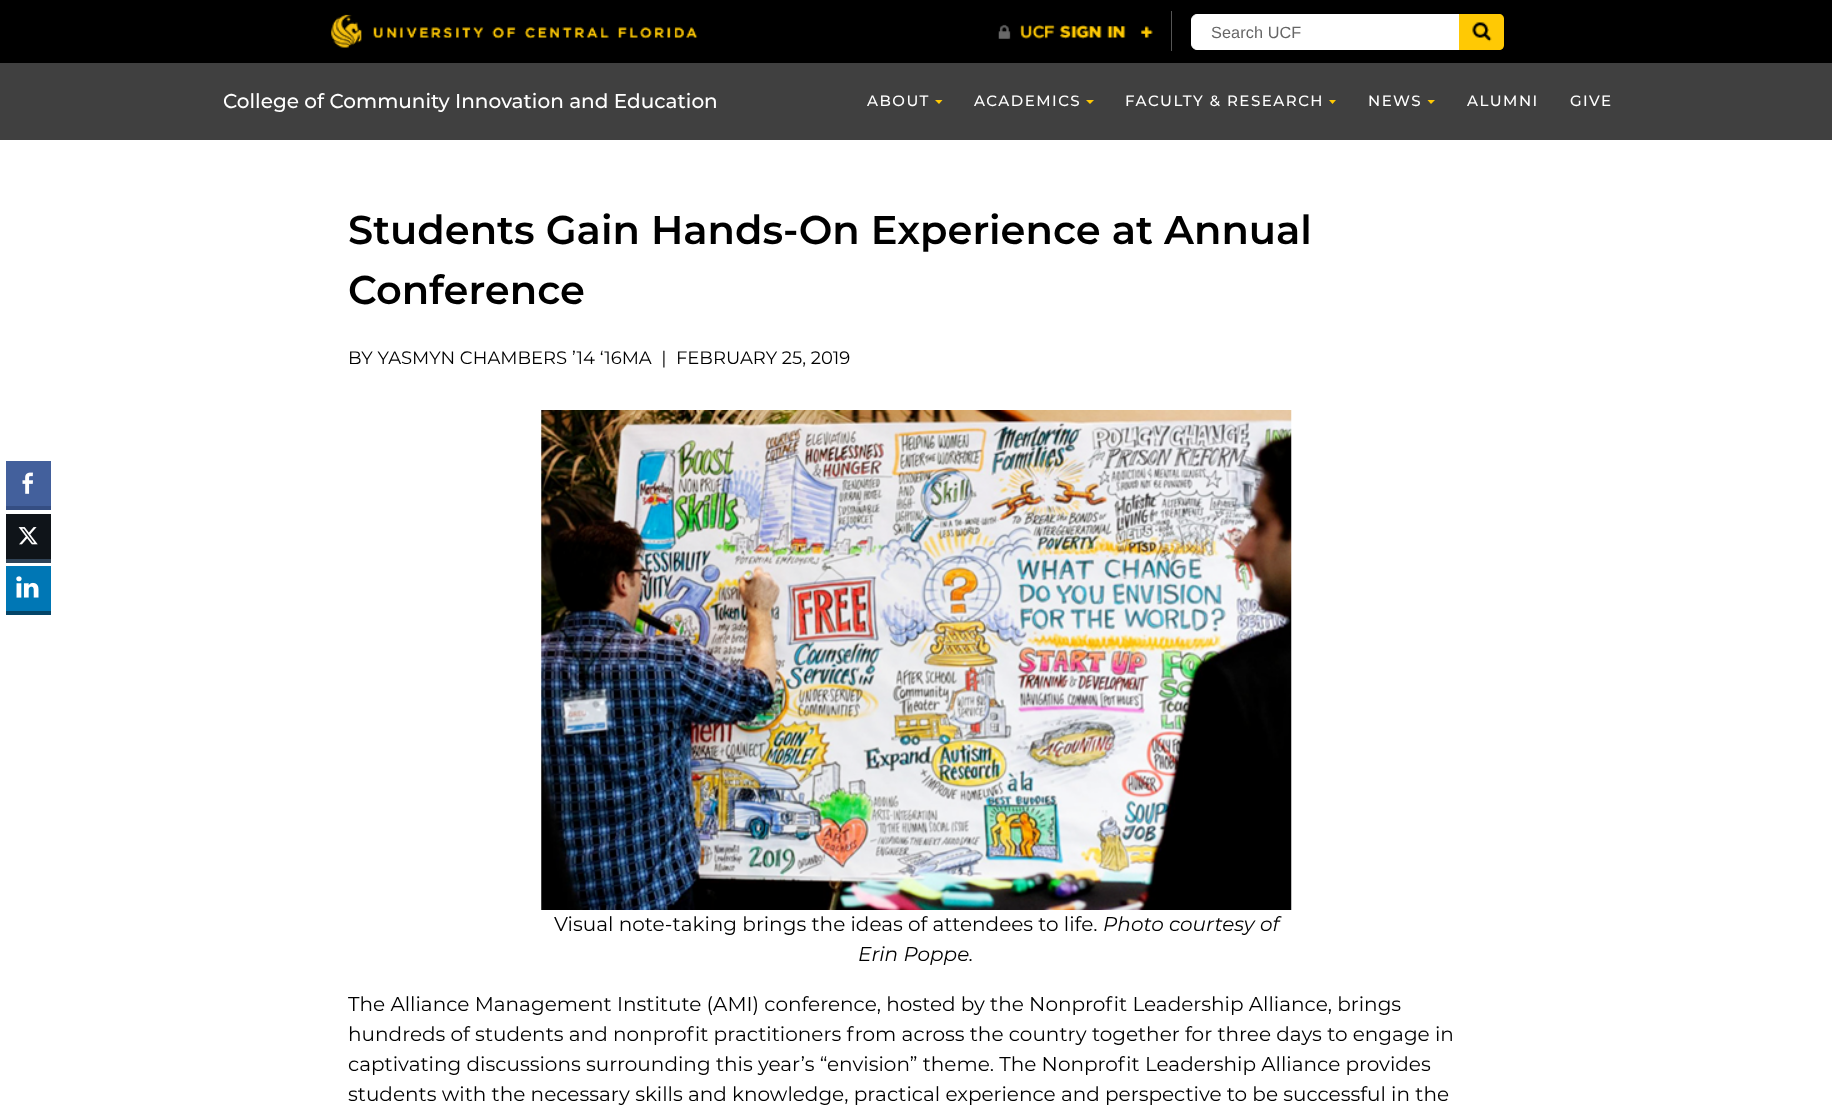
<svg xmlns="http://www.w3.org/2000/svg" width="1832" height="1110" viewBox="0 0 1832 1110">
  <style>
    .t1 { font: 16.25px Liberation Sans; letter-spacing: 0.1px; fill: #666; }
    .t2 { font: 500 20px Montserrat; fill: #fff; }
    .t3 { font: 500 15px Montserrat; letter-spacing: 1.5px; fill: #fff; }
    .t4 { font: 600 40px Montserrat; fill: #000; }
    .t5 { font: 18px Montserrat; fill: #000; }
    .t6 { font: 20px Montserrat; fill: #000; }
    .t7 { font: italic 20px Montserrat; fill: #000; }
  </style>
  <rect width="100%" height="100%" fill="#fff"/>
  <rect x="0" y="0" width="1832" height="63" fill="#000"/>
  <image x="331" y="14" width="367" height="34" href="images/1.png"/>
  <image x="998" y="24" width="155" height="15" href="images/2.png"/>
  <rect x="1171" y="11" width="1" height="40" fill="#555"/>
  <path d="M1197 14.5H1472.5V49.5H1197C1194 49.5 1191.5 47 1191.5 44V20C1191.5 17 1194 14.5 1197 14.5Z" fill="#fff" stroke="#fff"/>
  <text x="1211" y="38" class="t1">Search UCF</text>
  <path d="M1459 14H1499C1502 14 1504 16 1504 19V45C1504 48 1502 50 1499 50H1459Z" fill="#ffc904"/>
  <image x="1472" y="22" width="20" height="20" href="images/3.png"/>
  <rect x="0" y="63" width="1832" height="77" fill="#404040"/>
  <text x="223" y="108" class="t2">College of Community Innovation and Education</text>
  <text x="867" y="106" class="t3">ABOUT</text>
  <path d="M935 100H942.5L939 104Z" fill="#ffc904"/>
  <text x="974" y="106" class="t3">ACADEMICS</text>
  <path d="M1086 100H1094L1090 104Z" fill="#ffc904"/>
  <text x="1125" y="106" class="t3">FACULTY &amp; RESEARCH</text>
  <path d="M1329 100H1336L1332.5 104Z" fill="#ffc904"/>
  <text x="1368" y="106" class="t3">NEWS</text>
  <path d="M1427.5 100H1435L1431 104Z" fill="#ffc904"/>
  <text x="1467" y="106" class="t3">ALUMNI</text>
  <text x="1570" y="106" class="t3">GIVE</text>
  <text x="348" y="244" class="t4">Students Gain Hands-On Experience at Annual</text>
  <text x="348" y="304" class="t4">Conference</text>
  <path d="M6 465V510H51V506H6Z" fill="#354e83"/>
  <rect x="6" y="461" width="45" height="45" fill="#43609c"/>
  <image x="22" y="472" width="11" height="22" href="images/4.png"/>
  <path d="M6 518V563H51V559H6Z" fill="#304356"/>
  <rect x="6" y="514" width="45" height="45" fill="#0f1419"/>
  <image x="18" y="527" width="20" height="18" href="images/5.png"/>
  <path d="M6 570V615H51V611H6Z" fill="#044568"/>
  <rect x="6" y="566" width="45" height="45" fill="#0077b5"/>
  <image x="16" y="576" width="23" height="22" href="images/6.png"/>
  <text x="348" y="364" class="t5" xml:space="preserve">BY YASMYN CHAMBERS ’14 ‘16MA  |  FEBRUARY 25, 2019</text>
  <image x="541" y="410" width="751" height="500" href="images/7.png"/>
  <text x="554" y="931" class="t6">Visual note-taking brings the ideas of attendees to life.</text>
  <text x="1103" y="931" class="t7">Photo courtesy of</text>
  <text x="858" y="961" class="t7">Erin Poppe.</text>
  <text x="348" y="1011" class="t6">The Alliance Management Institute (AMI) conference, hosted by the Nonprofit Leadership Alliance, brings</text>
  <text x="348" y="1041" class="t6">hundreds of students and nonprofit practitioners from across the country together for three days to engage in</text>
  <text x="348" y="1071" class="t6">captivating discussions surrounding this year’s “envision” theme. The Nonprofit Leadership Alliance provides</text>
  <text x="348" y="1101" class="t6">students with the necessary skills and knowledge, practical experience and perspective to be successful in the</text>
</svg>
